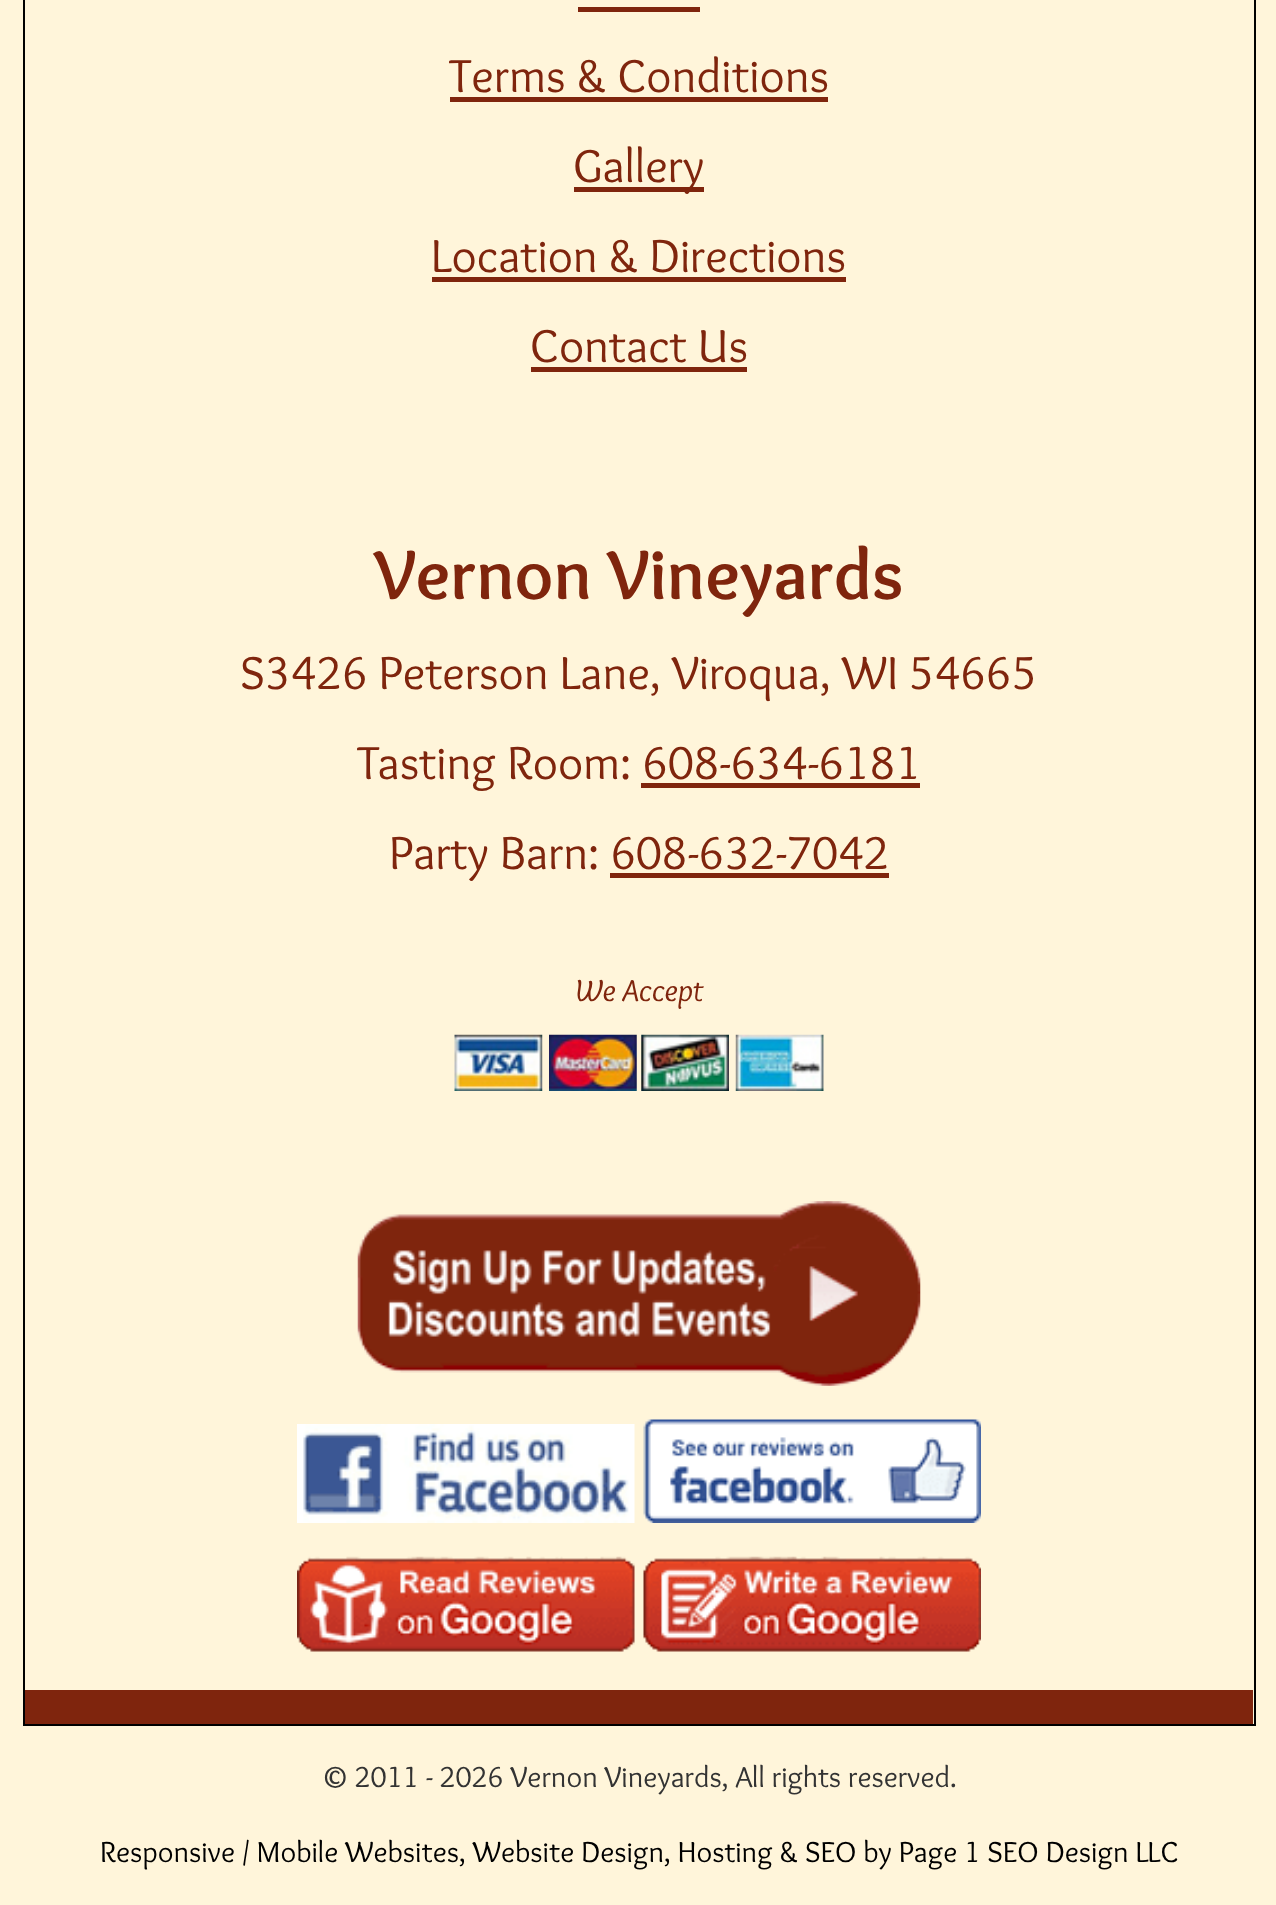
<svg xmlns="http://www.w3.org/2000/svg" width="1276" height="1905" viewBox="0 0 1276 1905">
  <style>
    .t1 { font: 48px Overlock; fill: #7f250d; }
    .t2 { font: bold 72px Overlock; fill: #7f250d; }
    .t3 { font: italic 31.5px Overlock; fill: #7f250d; }
    .t4 { font: 30px Overlock; fill: #333; }
    .t5 { font: 30px Overlock; fill: #000; }
  </style>
  <rect width="100%" height="100%" fill="#fff5da"/>
  <rect x="24" y="-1" width="1231" height="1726" fill="none" stroke="#000" stroke-width="2"/>
  <rect x="25" y="1690" width="1228" height="34" fill="#7f250d"/>
  <rect x="578" y="7" width="122" height="5" fill="#7f250d"/>
  <text x="449" y="92" class="t1">Terms &amp; Conditions</text>
  <rect x="450" y="97" width="378" height="5" fill="#7f250d"/>
  <rect x="574" y="187" width="130" height="5" fill="#7f250d"/>
  <text x="573" y="182" class="t1">Gallery</text>
  <text x="431" y="272" class="t1">Location &amp; Directions</text>
  <rect x="432" y="277" width="414" height="5" fill="#7f250d"/>
  <text x="530" y="362" class="t1">Contact Us</text>
  <rect x="531" y="367" width="216" height="5" fill="#7f250d"/>
  <text x="374" y="599" class="t2">Vernon Vineyards</text>
  <text x="240" y="689" class="t1">S3426 Peterson Lane, Viroqua, WI 54665</text>
  <text x="357" y="779" class="t1">Tasting Room: 608-634-6181</text>
  <rect x="641" y="783" width="279" height="5" fill="#7f250d"/>
  <text x="389" y="869" class="t1">Party Barn: 608-632-7042</text>
  <rect x="610" y="873" width="279" height="5" fill="#7f250d"/>
  <text x="575" y="1001" class="t3">We Accept</text>
  <image x="454" y="1034" width="89" height="57" href="images/1.png"/>
  <image x="549" y="1034" width="88" height="57" href="images/2.png"/>
  <image x="641" y="1034" width="88" height="57" href="images/3.png"/>
  <image x="735" y="1034" width="89" height="57" href="images/4.png"/>
  <image x="357" y="1201" width="564" height="185" href="images/5.png"/>
  <image x="297" y="1424" width="338" height="99" href="images/6.png"/>
  <image x="643" y="1419" width="338" height="104" href="images/7.png"/>
  <image x="297" y="1556" width="338" height="96" href="images/8.png"/>
  <image x="643" y="1556" width="338" height="96" href="images/9.png"/>
  <text x="321" y="1787" class="t4">© 2011 - 2026 Vernon Vineyards, All rights reserved.</text>
  <text x="100" y="1862" class="t5">Responsive / Mobile Websites, Website Design, Hosting &amp; SEO by Page 1 SEO Design LLC</text>
</svg>
